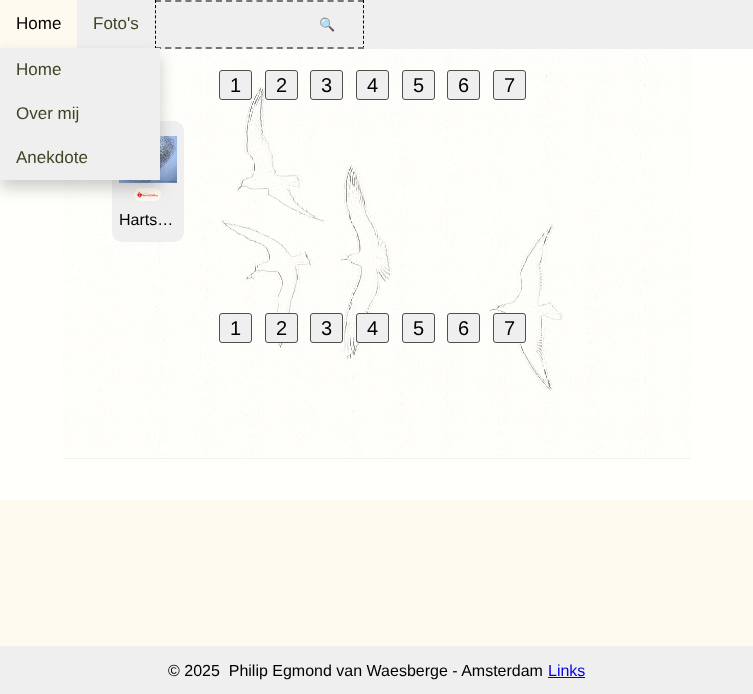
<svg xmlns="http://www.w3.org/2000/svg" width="753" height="694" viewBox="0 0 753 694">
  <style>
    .t1 { font: 17px Liberation Sans; fill: #000; }
    .t2 { font: 17px Liberation Sans; fill: #404426; }
    .t3 { font: 13px Noto Color Emoji; fill: #757575; }
    .t4 { font: 20px Liberation Sans; fill: #000; }
    .t5 { font: 16px Liberation Sans; fill: #000; }
    .t6 { font: 16px Liberation Sans; fill: #00e; }
  </style>
  <rect width="100%" height="100%" fill="#fffaf0"/>
  <image x="0" y="49" width="753" height="451" href="images/1.png"/>
  <rect x="77" y="0" width="676" height="49" fill="#efefef"/>
  <text x="16" y="29" class="t1">Home</text>
  <path d="M155 1H364" fill="none" stroke="#767676" stroke-width="2" stroke-dasharray="6 4.15"/>
  <path d="M363.5 0V49" fill="none" stroke="#000" stroke-dasharray="3 2.11"/>
  <path d="M155 48H364" fill="none" stroke="#767676" stroke-width="2" stroke-dasharray="6 4.15"/>
  <path d="M155.5 0V49" fill="none" stroke="#000" stroke-dasharray="3 2.11"/>
  <rect x="112" y="121" width="72" height="121" rx="10" fill="#efefef"/>
  <image x="119" y="136" width="58" height="47" href="images/2.png"/>
  <rect x="134" y="188" width="27" height="13" rx="6.5" fill="#fffaf0"/>
  <image x="137" y="191" width="21" height="7" href="images/3.png"/>
  <rect x="0" y="56" width="160" height="132" fill="#00000033" filter="blur(8px)"/>
  <rect x="0" y="48" width="160" height="132" fill="#efefef"/>
  <text x="16" y="75" class="t2">Home</text>
  <text x="16" y="119" class="t2">Over mij</text>
  <text x="16" y="163" class="t2">Anekdote</text>
  <text x="93" y="29" class="t2">Foto's</text>
  <text x="319" y="29" class="t3">🔍</text>
  <rect x="219.5" y="70.5" width="32" height="29" rx="2.5" fill="#efefef" stroke="#4f4f4f"/>
  <text x="230" y="92" class="t4">1</text>
  <rect x="265.5" y="70.5" width="32" height="29" rx="2.5" fill="#efefef" stroke="#4f4f4f"/>
  <text x="276" y="92" class="t4">2</text>
  <rect x="310.5" y="70.5" width="32" height="29" rx="2.5" fill="#efefef" stroke="#4f4f4f"/>
  <text x="321" y="92" class="t4">3</text>
  <rect x="356.5" y="70.5" width="32" height="29" rx="2.5" fill="#efefef" stroke="#4f4f4f"/>
  <text x="367" y="92" class="t4">4</text>
  <rect x="402.5" y="70.5" width="32" height="29" rx="2.5" fill="#efefef" stroke="#4f4f4f"/>
  <text x="413" y="92" class="t4">5</text>
  <rect x="447.5" y="70.5" width="32" height="29" rx="2.5" fill="#efefef" stroke="#4f4f4f"/>
  <text x="458" y="92" class="t4">6</text>
  <rect x="493.5" y="70.5" width="32" height="29" rx="2.5" fill="#efefef" stroke="#4f4f4f"/>
  <text x="504" y="92" class="t4">7</text>
  <text x="119" y="225" class="t5">Harts…</text>
  <rect x="219.5" y="313.5" width="32" height="29" rx="2.5" fill="#efefef" stroke="#4f4f4f"/>
  <text x="230" y="335" class="t4">1</text>
  <rect x="265.5" y="313.5" width="32" height="29" rx="2.5" fill="#efefef" stroke="#4f4f4f"/>
  <text x="276" y="335" class="t4">2</text>
  <rect x="310.5" y="313.5" width="32" height="29" rx="2.5" fill="#efefef" stroke="#4f4f4f"/>
  <text x="321" y="335" class="t4">3</text>
  <rect x="356.5" y="313.5" width="32" height="29" rx="2.5" fill="#efefef" stroke="#4f4f4f"/>
  <text x="367" y="335" class="t4">4</text>
  <rect x="402.5" y="313.5" width="32" height="29" rx="2.5" fill="#efefef" stroke="#4f4f4f"/>
  <text x="413" y="335" class="t4">5</text>
  <rect x="447.5" y="313.5" width="32" height="29" rx="2.5" fill="#efefef" stroke="#4f4f4f"/>
  <text x="458" y="335" class="t4">6</text>
  <rect x="493.5" y="313.5" width="32" height="29" rx="2.5" fill="#efefef" stroke="#4f4f4f"/>
  <text x="504" y="335" class="t4">7</text>
  <rect x="0" y="646" width="753" height="48" fill="#efefef"/>
  <text x="168" y="676" class="t5" xml:space="preserve">© 2025  Philip Egmond van Waesberge - Amsterdam</text>
  <text x="548" y="676" class="t6">Links</text>
  <rect x="548" y="677" width="37" height="1" fill="#00e"/>
</svg>
